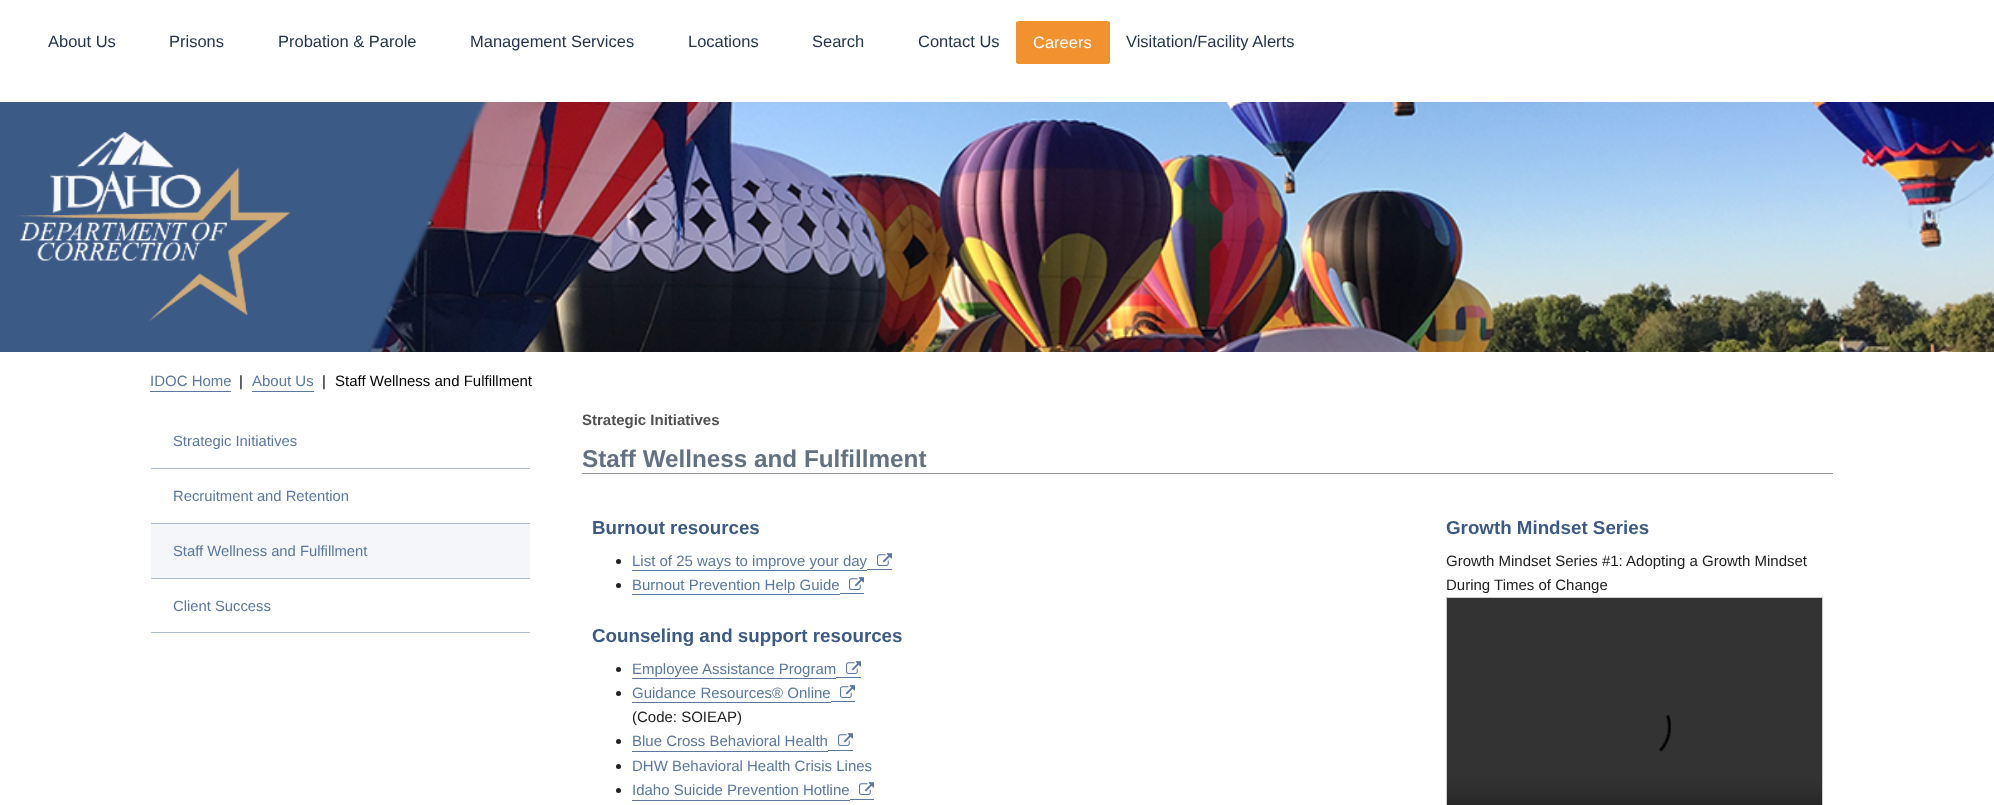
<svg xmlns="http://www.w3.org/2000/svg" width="1994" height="805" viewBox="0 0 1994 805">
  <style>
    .t1 { font: 16.5px Liberation Sans; fill: #25354d; }
    .t2 { font: 16.5px Liberation Sans; fill: #fff; }
    .t3 { font: 15px Liberation Sans; fill: #5b78a0; }
    .t4 { font: 15px Liberation Sans; fill: #000; }
    .t5 { font: 14.8px Liberation Sans; fill: #5b78a0; }
    .t6 { font: bold 15px Liberation Sans; fill: #505050; }
    .t7 { font: bold 24.25px Liberation Sans; fill: #647182; }
    .t8 { font: bold 18.75px Liberation Sans; fill: #3c5a86; }
    .t9 { font: 15px Liberation Sans; fill: #222; }
  </style>
  <rect width="100%" height="100%" fill="#fff"/>
  <text x="48" y="47" class="t1">About Us</text>
  <text x="169" y="47" class="t1">Prisons</text>
  <text x="278" y="47" class="t1">Probation &amp; Parole</text>
  <text x="470" y="47" class="t1">Management Services</text>
  <text x="688" y="47" class="t1">Locations</text>
  <text x="812" y="47" class="t1">Search</text>
  <text x="918" y="47" class="t1">Contact Us</text>
  <path d="M1020 21H1106C1108 21 1110 22 1110 23V62C1110 63 1108 64 1106 64H1020C1018 64 1016 63 1016 62V23C1016 22 1018 21 1020 21Z" fill="#f29130"/>
  <path d="M1020 21.5H1106C1108 21.5 1109.5 22 1109.5 22.5V62.5C1109.5 63 1108 63.5 1106 63.5H1020C1018 63.5 1016.5 63 1016.5 62.5V22.5C1016.5 22 1018 21.5 1020 21.5Z" fill="none" stroke="#f29130"/>
  <text x="1033" y="48" class="t2">Careers</text>
  <text x="1126" y="47" class="t1">Visitation/Facility Alerts</text>
  <rect x="0" y="102" width="489" height="250" fill="#3c5a86"/>
  <image x="367" y="102" width="1627" height="250" href="images/1.png"/>
  <image x="16" y="132" width="274" height="189" href="images/2.png"/>
  <text x="150" y="386" class="t3">IDOC Home</text>
  <rect x="150" y="391" width="81" height="1" fill="#5b78a0"/>
  <text x="239" y="386" class="t4">|</text>
  <text x="252" y="386" class="t3">About Us</text>
  <rect x="252" y="391" width="62" height="1" fill="#5b78a0"/>
  <text x="322" y="386" class="t4">|</text>
  <text x="335" y="386" class="t4">Staff Wellness and Fulfillment</text>
  <rect x="151" y="468" width="379" height="1" fill="#aebcd0"/>
  <text x="173" y="446" class="t5">Strategic Initiatives</text>
  <rect x="151" y="523" width="379" height="1" fill="#aebcd0"/>
  <text x="173" y="501" class="t5">Recruitment and Retention</text>
  <rect x="151" y="524" width="379" height="54" fill="#f4f6fa"/>
  <rect x="151" y="578" width="379" height="1" fill="#aebcd0"/>
  <text x="173" y="556" class="t5">Staff Wellness and Fulfillment</text>
  <rect x="151" y="632" width="379" height="1" fill="#aebcd0"/>
  <text x="173" y="611" class="t5">Client Success</text>
  <text x="582" y="425" class="t6">Strategic Initiatives</text>
  <rect x="582" y="473" width="1251" height="1" fill="#999"/>
  <text x="582" y="467" class="t7">Staff Wellness and Fulfillment</text>
  <text x="592" y="534" class="t8">Burnout resources</text>
  <circle cx="618.5" cy="561.5" r="2.5" fill="#222"/>
  <text x="632" y="566" class="t3">List of 25 ways to improve your day</text>
  <rect x="632" y="570" width="235" height="1" fill="#5b78a0"/>
  <rect x="867" y="569" width="25" height="1" fill="#5b78a0"/>
  <image x="877" y="553" width="15" height="13" href="images/3.png"/>
  <circle cx="618.5" cy="585.5" r="2.5" fill="#222"/>
  <text x="632" y="590" class="t3">Burnout Prevention Help Guide</text>
  <rect x="632" y="594" width="208" height="1" fill="#5b78a0"/>
  <rect x="840" y="593" width="24" height="1" fill="#5b78a0"/>
  <image x="849" y="577" width="15" height="13" href="images/3.png"/>
  <text x="592" y="642" class="t8">Counseling and support resources</text>
  <circle cx="618.5" cy="669.5" r="2.5" fill="#222"/>
  <text x="632" y="674" class="t3">Employee Assistance Program</text>
  <rect x="632" y="678" width="204" height="1" fill="#5b78a0"/>
  <rect x="836" y="677" width="25" height="1" fill="#5b78a0"/>
  <image x="846" y="661" width="15" height="13" href="images/3.png"/>
  <circle cx="618.5" cy="693.5" r="2.5" fill="#222"/>
  <text x="632" y="698" class="t3">Guidance Resources® Online</text>
  <rect x="632" y="702" width="199" height="1" fill="#5b78a0"/>
  <rect x="831" y="701" width="24" height="1" fill="#5b78a0"/>
  <image x="840" y="685" width="15" height="13" href="images/3.png"/>
  <text x="632" y="722" class="t9">(Code: SOIEAP)</text>
  <circle cx="618.5" cy="741.5" r="2.5" fill="#222"/>
  <text x="632" y="746" class="t3">Blue Cross Behavioral Health</text>
  <rect x="632" y="751" width="196" height="1" fill="#5b78a0"/>
  <rect x="828" y="750" width="25" height="1" fill="#5b78a0"/>
  <image x="838" y="733" width="15" height="13" href="images/3.png"/>
  <circle cx="618.5" cy="766.5" r="2.5" fill="#222"/>
  <text x="632" y="771" class="t3">DHW Behavioral Health Crisis Lines</text>
  <circle cx="618.5" cy="790.5" r="2.5" fill="#222"/>
  <text x="632" y="795" class="t3">Idaho Suicide Prevention Hotline</text>
  <rect x="632" y="800" width="218" height="1" fill="#5b78a0"/>
  <rect x="850" y="799" width="24" height="1" fill="#5b78a0"/>
  <image x="859" y="782" width="15" height="13" href="images/3.png"/>
  <text x="1446" y="534" class="t8">Growth Mindset Series</text>
  <text x="1446" y="566" class="t9">Growth Mindset Series #1: Adopting a Growth Mindset</text>
  <text x="1446" y="590" class="t9">During Times of Change</text>
  <rect x="1446.5" y="597.5" width="376" height="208" fill="none" stroke="#ccc"/>
  <image x="1447" y="598" width="375" height="207" href="images/4.png"/>
</svg>
